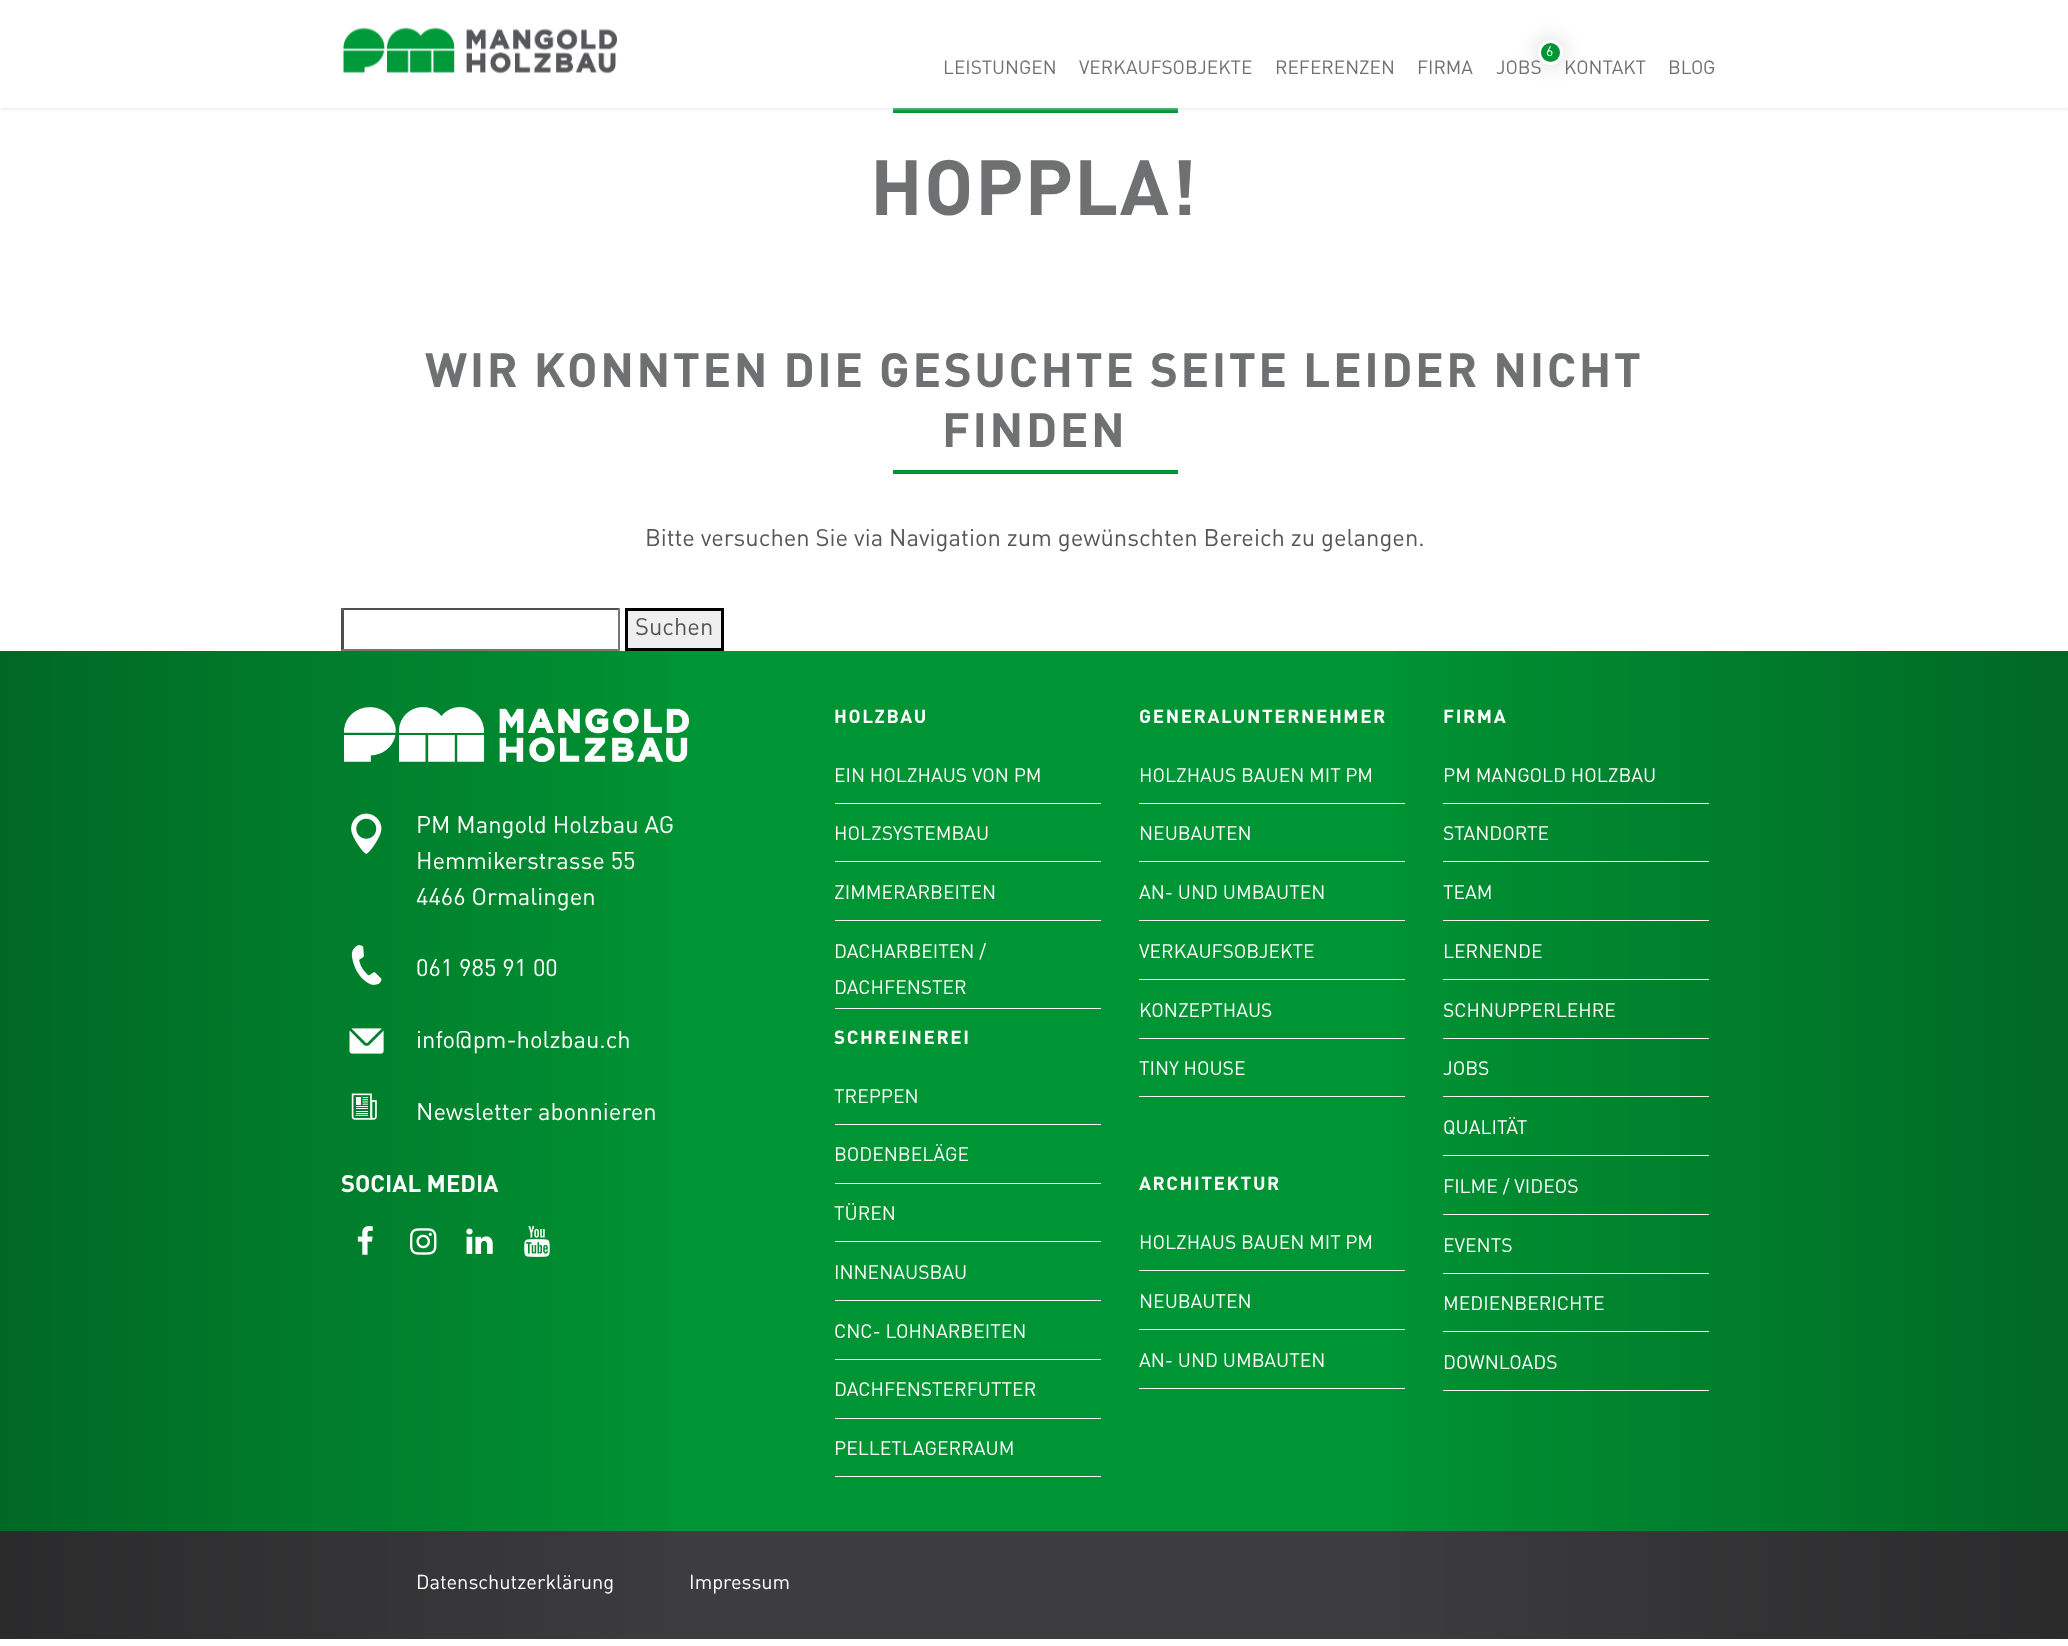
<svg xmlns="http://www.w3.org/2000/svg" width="2068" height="1646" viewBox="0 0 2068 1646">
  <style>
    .t1 { font: 19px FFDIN; fill: #6f7072; }
    .t2 { font: 14px FFDIN; fill: #fff; }
    .t3 { font: bold 77px FFDIN; letter-spacing: 1.25px; fill: #6f7072; }
    .t4 { font: bold 47.5px FFDIN; letter-spacing: 2.5px; fill: #6f7072; }
    .t5 { font: 23.75px FFDIN; fill: #555656; }
    .t6 { font: 23.75px FFDIN; fill: #fff; }
    .t7 { font: bold 23.75px FFDIN; fill: #fff; }
    .t8 { font: bold 18.75px FFDIN; letter-spacing: 1.6px; fill: #fff; }
    .t9 { font: 19.25px FFDIN; fill: #fff; }
    .t10 { font: 20px FFDIN; fill: #fff; }
  </style>
  <defs>
    <linearGradient id="g1" gradientUnits="userSpaceOnUse" x1="0" y1="1145" x2="724" y2="1145"><stop offset="0" stop-color="#000" stop-opacity="0.3"/><stop offset="1" stop-color="#000" stop-opacity="0"/></linearGradient>
    <linearGradient id="g2" gradientUnits="userSpaceOnUse" x1="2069" y1="1145" x2="1345" y2="1145"><stop offset="0" stop-color="#000" stop-opacity="0.3"/><stop offset="1" stop-color="#000" stop-opacity="0"/></linearGradient>
  </defs>
  <rect width="100%" height="100%" fill="#fff"/>
  <rect x="893" y="108" width="285" height="5" fill="#009534"/>
  <rect x="1" y="0" width="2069" height="108" fill="#ddd" filter="blur(2px)"/>
  <rect x="0" y="0" width="2068" height="108" fill="#fff"/>
  <image x="343" y="27" width="274" height="47" href="images/1.png"/>
  <text x="943" y="74" class="t1">LEISTUNGEN</text>
  <text x="1079" y="74" class="t1">VERKAUFSOBJEKTE</text>
  <text x="1275" y="74" class="t1">REFERENZEN</text>
  <text x="1417" y="74" class="t1">FIRMA</text>
  <rect x="1544" y="46" width="12" height="13" rx="6" fill="#000000b3" filter="blur(12.5px)"/>
  <text x="1496" y="74" class="t1">JOBS</text>
  <circle cx="1550.5" cy="52.5" r="11" fill="#009534" stroke="#fff" stroke-width="3"/>
  <text x="1546" y="56" class="t2">6</text>
  <text x="1564" y="74" class="t1">KONTAKT</text>
  <text x="1668" y="74" class="t1">BLOG</text>
  <text x="870" y="215" class="t3">HOPPLA!</text>
  <text x="425" y="387" class="t4">WIR KONNTEN DIE GESUCHTE SEITE LEIDER NICHT</text>
  <text x="942" y="447" class="t4">FINDEN</text>
  <rect x="893" y="470" width="285" height="4" fill="#009534"/>
  <text x="645" y="546" class="t5">Bitte versuchen Sie via Navigation zum gewünschten Bereich zu gelangen.</text>
  <path d="M341 608H620L618 610H344Z" fill="#4f4f4f"/>
  <path d="M620 608V651L618 649V610Z" fill="#767676"/>
  <path d="M620 651H341L344 649H618Z" fill="#767676"/>
  <path d="M341 651V608L344 610V649Z" fill="#4f4f4f"/>
  <rect x="626.5" y="609.5" width="96" height="40" fill="#efefef" stroke="#000" stroke-width="3"/>
  <text x="635" y="635" class="t5">Suchen</text>
  <rect x="0" y="651" width="2068" height="880" fill="#009534"/>
  <rect x="0" y="1531" width="2068" height="108" fill="#3d3d3f"/>
  <rect x="0" y="651" width="672" height="988" fill="url(#g1)"/>
  <image x="344" y="707" width="345" height="55" href="images/2.png"/>
  <image x="351" y="813" width="31" height="41" href="images/3.png"/>
  <text x="416" y="833" class="t6">PM Mangold Holzbau AG</text>
  <text x="416" y="869" class="t6">Hemmikerstrasse 55</text>
  <text x="416" y="905" class="t6">4466 Ormalingen</text>
  <image x="351" y="945" width="31" height="40" href="images/4.png"/>
  <text x="416" y="976" class="t6">061 985 91 00</text>
  <image x="349" y="1028" width="35" height="26" href="images/5.png"/>
  <text x="416" y="1048" class="t6">info@pm-holzbau.ch</text>
  <image x="351" y="1093" width="26" height="27" href="images/6.png"/>
  <text x="416" y="1120" class="t6">Newsletter abonnieren</text>
  <text x="341" y="1192" class="t7">SOCIAL MEDIA</text>
  <image x="357" y="1226" width="16" height="29" href="images/7.png"/>
  <image x="410" y="1228" width="27" height="27" href="images/8.png"/>
  <image x="466" y="1228" width="27" height="26" href="images/9.png"/>
  <image x="524" y="1226" width="26" height="31" href="images/10.png"/>
  <text x="834" y="723" class="t8">HOLZBAU</text>
  <rect x="835" y="803" width="266" height="1" fill="#fff"/>
  <text x="834" y="782" class="t9">EIN HOLZHAUS VON PM</text>
  <rect x="835" y="861" width="266" height="1" fill="#fff"/>
  <text x="834" y="840" class="t9">HOLZSYSTEMBAU</text>
  <rect x="835" y="920" width="266" height="1" fill="#fff"/>
  <text x="834" y="899" class="t9">ZIMMERARBEITEN</text>
  <rect x="835" y="1008" width="266" height="1" fill="#fff"/>
  <text x="834" y="958" class="t9">DACHARBEITEN /</text>
  <text x="834" y="994" class="t9">DACHFENSTER</text>
  <text x="834" y="1044" class="t8">SCHREINEREI</text>
  <rect x="835" y="1124" width="266" height="1" fill="#fff"/>
  <text x="834" y="1103" class="t9">TREPPEN</text>
  <rect x="835" y="1183" width="266" height="1" fill="#fff"/>
  <text x="834" y="1161" class="t9">BODENBELÄGE</text>
  <rect x="835" y="1241" width="266" height="1" fill="#fff"/>
  <text x="834" y="1220" class="t9">TÜREN</text>
  <rect x="835" y="1300" width="266" height="1" fill="#fff"/>
  <text x="834" y="1279" class="t9">INNENAUSBAU</text>
  <rect x="835" y="1359" width="266" height="1" fill="#fff"/>
  <text x="834" y="1338" class="t9">CNC- LOHNARBEITEN</text>
  <rect x="835" y="1418" width="266" height="1" fill="#fff"/>
  <text x="834" y="1396" class="t9">DACHFENSTERFUTTER</text>
  <rect x="835" y="1476" width="266" height="1" fill="#fff"/>
  <text x="834" y="1455" class="t9">PELLETLAGERRAUM</text>
  <text x="1139" y="723" class="t8">GENERALUNTERNEHMER</text>
  <rect x="1397" y="651" width="671" height="988" fill="url(#g2)"/>
  <rect x="1139" y="803" width="266" height="1" fill="#fff"/>
  <text x="1139" y="782" class="t9">HOLZHAUS BAUEN MIT PM</text>
  <rect x="1139" y="861" width="266" height="1" fill="#fff"/>
  <text x="1139" y="840" class="t9">NEUBAUTEN</text>
  <rect x="1139" y="920" width="266" height="1" fill="#fff"/>
  <text x="1139" y="899" class="t9">AN- UND UMBAUTEN</text>
  <rect x="1139" y="979" width="266" height="1" fill="#fff"/>
  <text x="1139" y="958" class="t9">VERKAUFSOBJEKTE</text>
  <rect x="1139" y="1038" width="266" height="1" fill="#fff"/>
  <text x="1139" y="1017" class="t9">KONZEPTHAUS</text>
  <rect x="1139" y="1096" width="266" height="1" fill="#fff"/>
  <text x="1139" y="1075" class="t9">TINY HOUSE</text>
  <text x="1139" y="1190" class="t8">ARCHITEKTUR</text>
  <rect x="1139" y="1270" width="266" height="1" fill="#fff"/>
  <text x="1139" y="1249" class="t9">HOLZHAUS BAUEN MIT PM</text>
  <rect x="1139" y="1329" width="266" height="1" fill="#fff"/>
  <text x="1139" y="1308" class="t9">NEUBAUTEN</text>
  <rect x="1139" y="1388" width="266" height="1" fill="#fff"/>
  <text x="1139" y="1367" class="t9">AN- UND UMBAUTEN</text>
  <text x="1443" y="723" class="t8">FIRMA</text>
  <rect x="1443" y="803" width="266" height="1" fill="#fff"/>
  <text x="1443" y="782" class="t9">PM MANGOLD HOLZBAU</text>
  <rect x="1443" y="861" width="266" height="1" fill="#fff"/>
  <text x="1443" y="840" class="t9">STANDORTE</text>
  <rect x="1443" y="920" width="266" height="1" fill="#fff"/>
  <text x="1443" y="899" class="t9">TEAM</text>
  <rect x="1443" y="979" width="266" height="1" fill="#fff"/>
  <text x="1443" y="958" class="t9">LERNENDE</text>
  <rect x="1443" y="1038" width="266" height="1" fill="#fff"/>
  <text x="1443" y="1017" class="t9">SCHNUPPERLEHRE</text>
  <rect x="1443" y="1096" width="266" height="1" fill="#fff"/>
  <text x="1443" y="1075" class="t9">JOBS</text>
  <rect x="1443" y="1155" width="266" height="1" fill="#fff"/>
  <text x="1443" y="1134" class="t9">QUALITÄT</text>
  <rect x="1443" y="1214" width="266" height="1" fill="#fff"/>
  <text x="1443" y="1193" class="t9">FILME / VIDEOS</text>
  <rect x="1443" y="1273" width="266" height="1" fill="#fff"/>
  <text x="1443" y="1252" class="t9">EVENTS</text>
  <rect x="1443" y="1331" width="266" height="1" fill="#fff"/>
  <text x="1443" y="1310" class="t9">MEDIENBERICHTE</text>
  <rect x="1443" y="1390" width="266" height="1" fill="#fff"/>
  <text x="1443" y="1369" class="t9">DOWNLOADS</text>
  <text x="416" y="1589" class="t10">Datenschutzerklärung</text>
  <text x="689" y="1589" class="t10">Impressum</text>
</svg>
